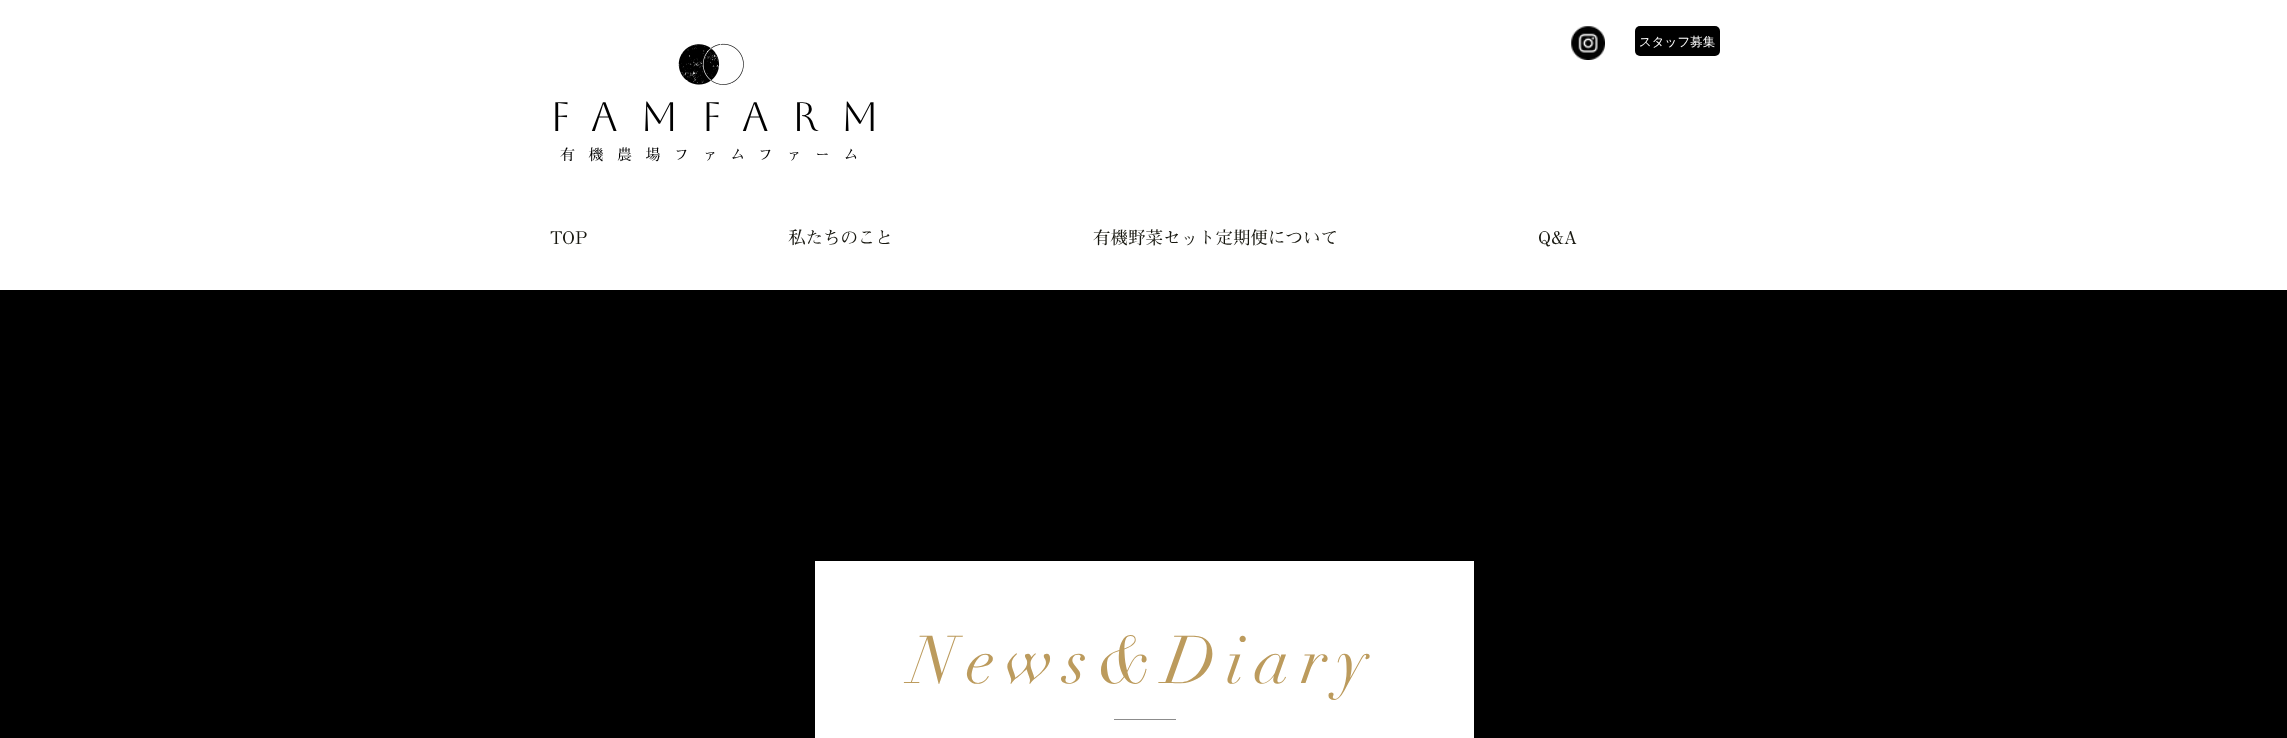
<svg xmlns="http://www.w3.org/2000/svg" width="2287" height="738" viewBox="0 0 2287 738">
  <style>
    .t1 { font: 500 12.5px WenQuanYi Zen Hei; fill: #fff; }
    .t2 { font: 41.25px Aboreto; letter-spacing: 22.75px; fill: #000; }
    .t3 { font: 500 15px 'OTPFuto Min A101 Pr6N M'; letter-spacing: 13.5px; fill: #000; }
    .t4 { font: 500 17.5px 'OTPFuto Min A101 Pr6N M'; fill: #17170f; }
    .t5 { font: 66.25px didot; letter-spacing: 10px; fill: #bc9b5d; }
  </style>
  <rect width="100%" height="100%" fill="#fff"/>
  <image x="1571" y="26" width="34" height="34" href="images/1.png"/>
  <rect x="1635" y="26" width="85" height="30" rx="5" fill="#000"/>
  <text x="1639" y="46" class="t1">スタッフ募集</text>
  <image x="678" y="43" width="66" height="42" href="images/2.png"/>
  <text x="550" y="131" class="t2">FAMFARM</text>
  <text x="560" y="160" class="t3">有機農場ファムファーム</text>
  <text x="550" y="244" class="t4">TOP</text>
  <text x="788" y="244" class="t4">私たちのこと</text>
  <text x="1093" y="244" class="t4">有機野菜セット定期便について</text>
  <text x="1538" y="244" class="t4">Q&amp;A</text>
  <rect x="0" y="290" width="2287" height="448" fill="#000"/>
  <rect x="815" y="561" width="659" height="177" fill="#fff"/>
  <text x="910" y="683" class="t5">News&amp;Diary</text>
  <rect x="1114" y="719" width="62" height="1" fill="#8c8c8c"/>
</svg>
